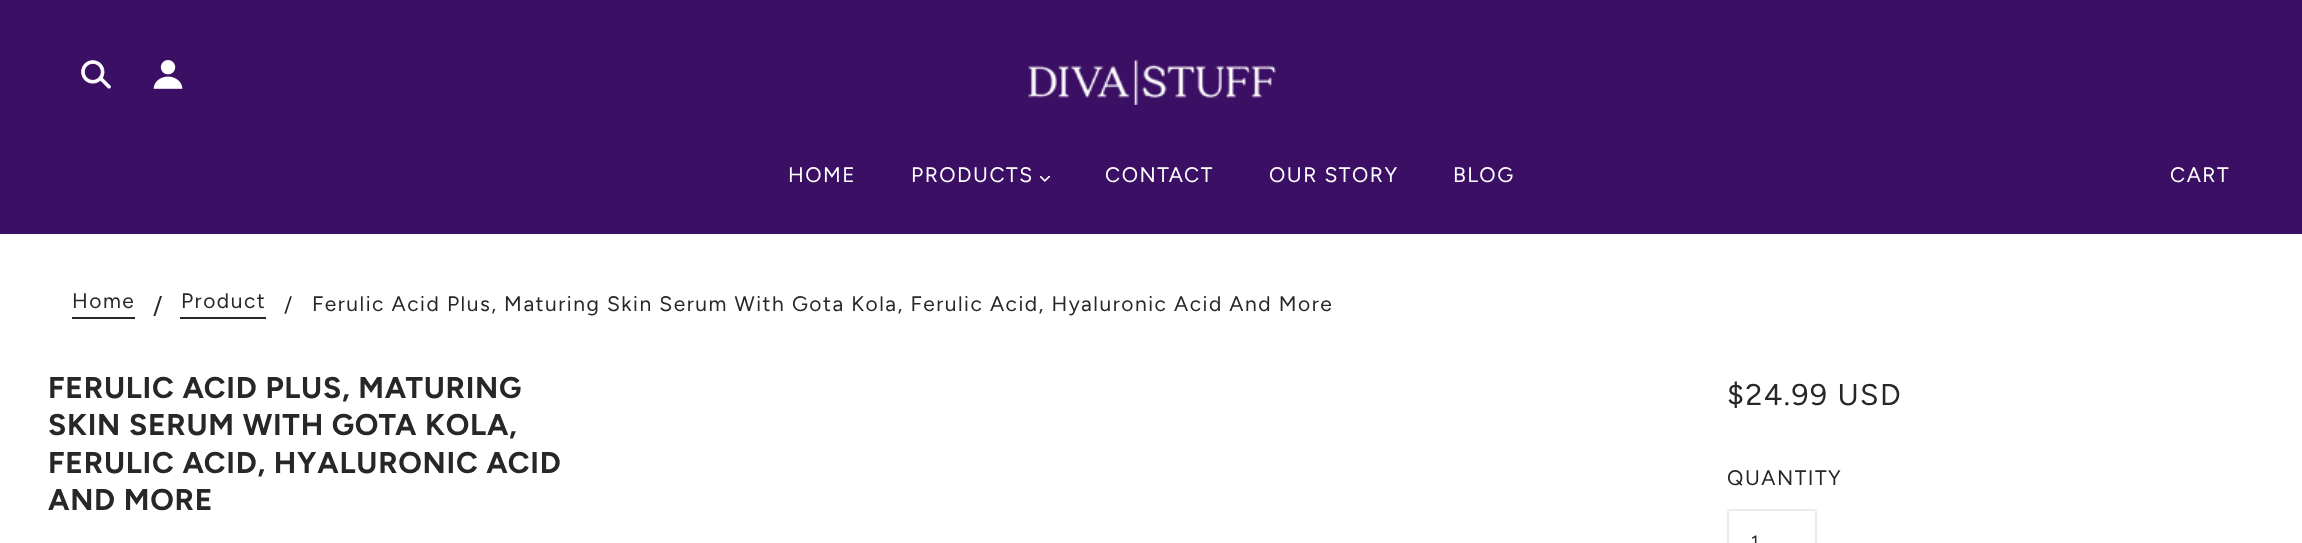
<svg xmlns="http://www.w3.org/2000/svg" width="2302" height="543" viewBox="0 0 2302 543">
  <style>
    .t1 { font: 21px Figtree; letter-spacing: 1.5px; fill: #fff; }
    .t2 { font: 21px Figtree; letter-spacing: 1.5px; fill: #272727; }
    .t3 { font: 24px Figtree; fill: #272727; }
    .t4 { font: bold 30px Figtree; letter-spacing: 0.75px; fill: #272727; }
    .t5 { font: 30px Figtree; letter-spacing: 1.5px; fill: #272727; }
    .t6 { font: 18px Figtree; letter-spacing: 1px; fill: #272727; }
  </style>
  <rect width="100%" height="100%" fill="#fff"/>
  <rect x="0" y="0" width="2302" height="234" fill="#3b0f64"/>
  <image x="81" y="60" width="30" height="29" href="images/1.png"/>
  <image x="153" y="60" width="30" height="29" href="images/2.png"/>
  <image x="1028" y="60" width="248" height="45" href="images/3.png"/>
  <text x="788" y="182" class="t1">HOME</text>
  <text x="911" y="182" class="t1">PRODUCTS</text>
  <image x="1040" y="176" width="10" height="6" href="images/4.png"/>
  <text x="1105" y="182" class="t1">CONTACT</text>
  <text x="1269" y="182" class="t1">OUR STORY</text>
  <text x="1453" y="182" class="t1">BLOG</text>
  <text x="2170" y="182" class="t1">CART</text>
  <text x="72" y="308" class="t2">Home</text>
  <rect x="72" y="317" width="63" height="2" fill="#272727"/>
  <text x="153" y="314" class="t3">/</text>
  <text x="181" y="308" class="t2">Product</text>
  <rect x="180" y="317" width="86" height="2" fill="#272727"/>
  <text x="284" y="312" class="t2">/</text>
  <text x="312" y="311" class="t2">Ferulic Acid Plus, Maturing Skin Serum With Gota Kola, Ferulic Acid, Hyaluronic Acid And More</text>
  <text x="48" y="398" class="t4">FERULIC ACID PLUS, MATURING</text>
  <text x="48" y="435" class="t4">SKIN SERUM WITH GOTA KOLA,</text>
  <text x="48" y="473" class="t4">FERULIC ACID, HYALURONIC ACID</text>
  <text x="48" y="510" class="t4">AND MORE</text>
  <text x="1727" y="405" class="t5">$24.99 USD</text>
  <text x="1727" y="485" class="t2">QUANTITY</text>
  <rect x="1728" y="510" width="88" height="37" rx="2" fill="none" stroke="#ebebeb" stroke-width="2"/>
  <text x="1751" y="548" class="t6">1</text>
</svg>
